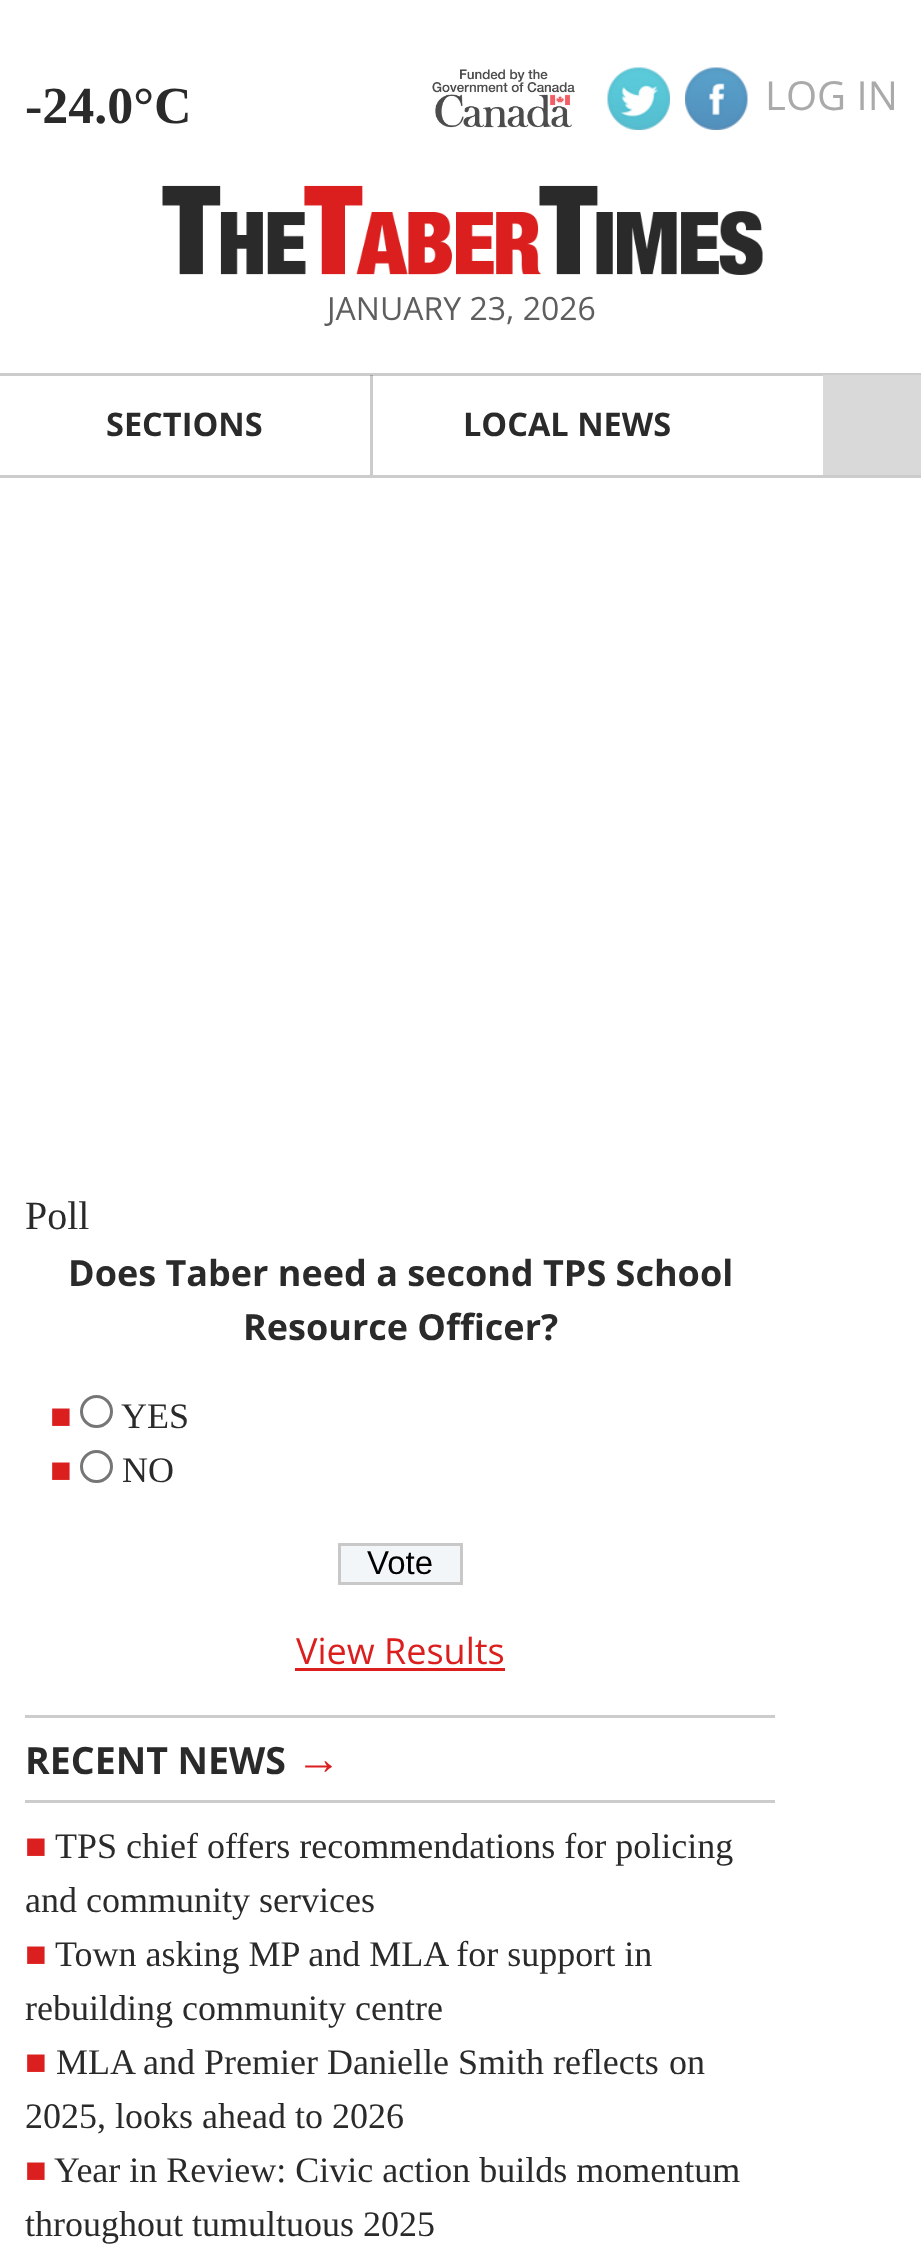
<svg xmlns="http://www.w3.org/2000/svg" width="921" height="2253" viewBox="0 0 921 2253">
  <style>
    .t1 { font: bold 52px Liberation Serif; fill: #2a2a2a; }
    .t2 { font: 40px Open Sans; fill: #aaa; }
    .t3 { font: 32px Open Sans; fill: #5e5e5e; }
    .t4 { font: bold 32.5px Open Sans; fill: #2a2a2a; }
    .t5 { font: 40px Liberation Serif; fill: #2a2a2a; }
    .t6 { font: bold 36px Open Sans; fill: #2a2a2a; }
    .t7 { font: 36px Liberation Serif; fill: #db1f1f; }
    .t8 { font: 36px Liberation Serif; fill: #2a2a2a; }
    .t9 { font: 33px Liberation Sans; fill: #000; }
    .t10 { font: 36px Open Sans; fill: #db1f1f; }
    .t11 { font: bold 37.5px Open Sans; fill: #2a2a2a; }
    .t12 { font: bold 45px Liberation Sans; fill: #db1f1f; }
  </style>
  <rect width="100%" height="100%" fill="#fff"/>
  <rect x="370" y="375" width="3" height="100" fill="#ccc"/>
  <text x="25" y="123" class="t1">-24.0°C</text>
  <image x="432" y="69" width="143" height="59" href="images/1.png"/>
  <image x="607" y="67" width="63" height="63" href="images/2.png"/>
  <image x="685" y="67" width="63" height="63" href="images/3.png"/>
  <text x="765" y="110" class="t2">LOG IN</text>
  <image x="162" y="185" width="601" height="90" href="images/4.png"/>
  <text x="327" y="320" class="t3">JANUARY 23, 2026</text>
  <rect x="0" y="373" width="921" height="3" fill="#ccc"/>
  <rect x="370" y="375" width="3" height="1" fill="#a3a3a3"/>
  <rect x="0" y="475" width="921" height="3" fill="#ccc"/>
  <text x="106" y="436" class="t4">SECTIONS</text>
  <text x="463" y="436" class="t4">LOCAL NEWS</text>
  <rect x="823" y="375" width="98" height="100" fill="#d9d9d9"/>
  <text x="25" y="1229" class="t5">Poll</text>
  <text x="68" y="1286" class="t6">Does Taber need a second TPS School</text>
  <text x="243" y="1340" class="t6">Resource Officer?</text>
  <text x="50" y="1428" class="t7">■</text>
  <circle cx="96.5" cy="1411.5" r="15" fill="none" stroke="#767676" stroke-width="3"/>
  <text x="121" y="1428" class="t8">YES</text>
  <text x="50" y="1482" class="t7">■</text>
  <circle cx="96.5" cy="1466.5" r="15" fill="none" stroke="#767676" stroke-width="3"/>
  <text x="122" y="1482" class="t8">NO</text>
  <rect x="339.5" y="1544.5" width="122" height="39" fill="#f3f6f8" stroke="#c8c8c8" stroke-width="3"/>
  <text x="367" y="1574" class="t9">Vote</text>
  <text x="296" y="1664" class="t10">View Results</text>
  <rect x="295" y="1668" width="210" height="3" fill="#db1f1f"/>
  <rect x="25" y="1715" width="750" height="3" fill="#ccc"/>
  <rect x="25" y="1800" width="750" height="3" fill="#ccc"/>
  <text x="25" y="1774" class="t11">RECENT NEWS</text>
  <text x="296" y="1774" class="t12">→</text>
  <text x="25" y="1858" class="t7">■</text>
  <text x="55" y="1858" class="t8">TPS chief offers recommendations for policing</text>
  <text x="25" y="1912" class="t8">and community services</text>
  <text x="25" y="1966" class="t7">■</text>
  <text x="55" y="1966" class="t8">Town asking MP and MLA for support in</text>
  <text x="25" y="2020" class="t8">rebuilding community centre</text>
  <text x="25" y="2074" class="t7">■</text>
  <text x="56" y="2074" class="t8">MLA and Premier Danielle Smith reflects</text>
  <text x="669" y="2074" class="t8">on</text>
  <text x="25" y="2128" class="t8">2025, looks ahead to 2026</text>
  <text x="25" y="2182" class="t7">■</text>
  <text x="54" y="2182" class="t8">Year in Review: Civic action builds momentum</text>
  <text x="25" y="2236" class="t8">throughout tumultuous 2025</text>
</svg>
